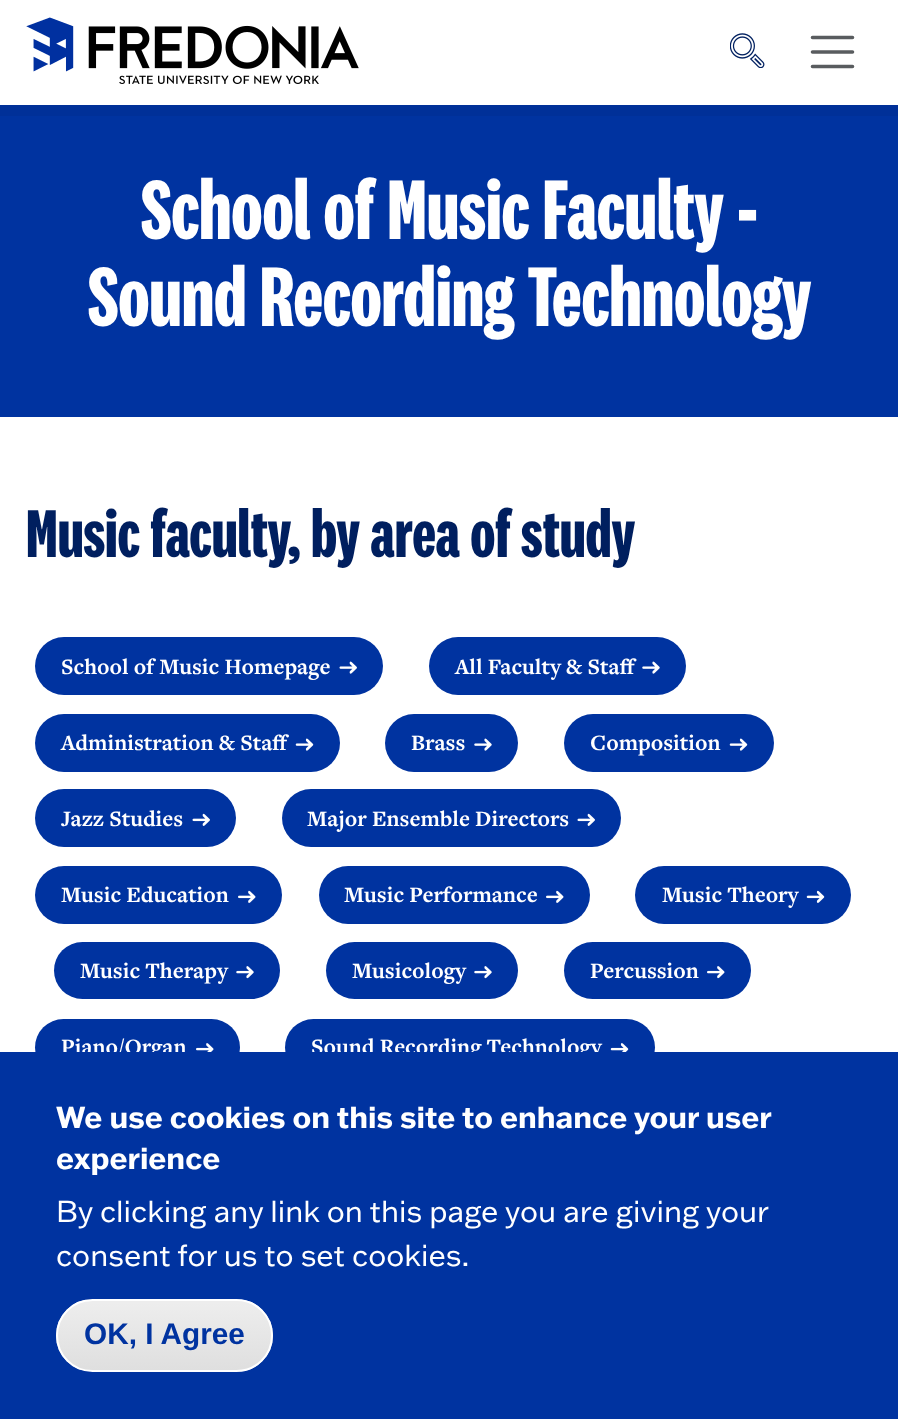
<svg xmlns="http://www.w3.org/2000/svg" width="898" height="1419" viewBox="0 0 898 1419">
  <style>
    .t1 { font: bold 87.5px 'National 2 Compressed'; fill: #fff; }
    .t2 { font: bold 70px 'National 2 Compressed'; fill: #001f5f; }
    .t3 { font: bold 22.75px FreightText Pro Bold; fill: #fff; }
    .t4 { font: bold 29.75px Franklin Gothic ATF; fill: #fff; }
    .t5 { font: 29.75px Franklin Gothic ATF; fill: #fff; }
    .t6 { font: bold 29.75px Liberation Sans; fill: #0033a0; }
  </style>
  <defs>
    <clipPath id="clip1"><rect x="56" y="1299" width="217" height="73" rx="36.5"/></clipPath>
    <linearGradient id="g1" gradientUnits="userSpaceOnUse" x1="165" y1="1300" x2="165" y2="1370"><stop offset="0.05" stop-color="#ededed"/><stop offset="1" stop-color="#dfdfdf"/></linearGradient>
  </defs>
  <rect width="100%" height="100%" fill="#fff"/>
  <path d="M0 105V116H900V11V105Z" fill="#003098"/>
  <image x="26" y="17" width="333" height="67" href="images/1.png"/>
  <image x="730" y="33" width="35" height="35" href="images/2.png"/>
  <path d="M812.5 37.5H852.5M812.5 52H852.5M812.5 66.5H852.5" fill="none" stroke="#595c5f" stroke-width="3.6" stroke-linecap="round"/>
  <rect x="0" y="116" width="898" height="301" fill="#0033a0"/>
  <text x="141" y="239" class="t1">School of Music Faculty -</text>
  <text x="88" y="326" class="t1">Sound Recording Technology</text>
  <text x="26" y="557" class="t2">Music faculty, by area of study</text>
  <rect x="35" y="637" width="348" height="58" rx="29" fill="#0033a0"/>
  <text x="61" y="674" class="t3">School of Music Homepage</text>
  <image x="339" y="661" width="18" height="13" href="images/3.png"/>
  <rect x="429" y="637" width="257" height="58" rx="29" fill="#0033a0"/>
  <text x="455" y="674" class="t3">All Faculty &amp; Staff</text>
  <image x="642" y="661" width="18" height="13" href="images/4.png"/>
  <rect x="35" y="714" width="305" height="58" rx="29" fill="#0033a0"/>
  <text x="61" y="750" class="t3">Administration &amp; Staff</text>
  <image x="295" y="738" width="19" height="13" href="images/5.png"/>
  <rect x="385" y="714" width="133" height="58" rx="29" fill="#0033a0"/>
  <text x="411" y="750" class="t3">Brass</text>
  <image x="474" y="738" width="18" height="13" href="images/4.png"/>
  <rect x="564" y="714" width="210" height="58" rx="29" fill="#0033a0"/>
  <text x="590" y="750" class="t3">Composition</text>
  <image x="729" y="738" width="19" height="13" href="images/5.png"/>
  <rect x="35" y="789" width="201" height="58" rx="29" fill="#0033a0"/>
  <text x="61" y="826" class="t3">Jazz Studies</text>
  <image x="192" y="813" width="18" height="13" href="images/6.png"/>
  <rect x="282" y="789" width="339" height="58" rx="29" fill="#0033a0"/>
  <text x="307" y="826" class="t3">Major Ensemble Directors</text>
  <image x="577" y="813" width="18" height="13" href="images/6.png"/>
  <rect x="35" y="866" width="247" height="58" rx="29" fill="#0033a0"/>
  <text x="61" y="902" class="t3">Music Education</text>
  <image x="238" y="890" width="18" height="13" href="images/7.png"/>
  <rect x="319" y="866" width="271" height="58" rx="29" fill="#0033a0"/>
  <text x="344" y="902" class="t3">Music Performance</text>
  <image x="546" y="890" width="18" height="13" href="images/7.png"/>
  <rect x="635" y="866" width="216" height="58" rx="29" fill="#0033a0"/>
  <text x="662" y="902" class="t3">Music Theory</text>
  <image x="806" y="890" width="19" height="13" href="images/8.png"/>
  <rect x="54" y="942" width="226" height="57" rx="28.5" fill="#0033a0"/>
  <text x="80" y="978" class="t3">Music Therapy</text>
  <image x="236" y="966" width="18" height="13" href="images/9.png"/>
  <rect x="326" y="942" width="192" height="57" rx="28.5" fill="#0033a0"/>
  <text x="352" y="978" class="t3">Musicology</text>
  <image x="474" y="966" width="18" height="13" href="images/9.png"/>
  <rect x="564" y="942" width="187" height="57" rx="28.5" fill="#0033a0"/>
  <text x="590" y="978" class="t3">Percussion</text>
  <image x="707" y="966" width="18" height="13" href="images/10.png"/>
  <rect x="35" y="1019" width="205" height="57" rx="28.5" fill="#0033a0"/>
  <text x="61" y="1054" class="t3">Piano/Organ</text>
  <image x="196" y="1043" width="18" height="9" href="images/11.png"/>
  <rect x="285" y="1019" width="370" height="57" rx="28.5" fill="#0033a0"/>
  <text x="311" y="1054" class="t3">Sound Recording Technology</text>
  <image x="610" y="1043" width="19" height="9" href="images/12.png"/>
  <rect x="0" y="1052" width="898" height="367" fill="#0033a0"/>
  <text x="56" y="1128" class="t4">We use cookies on this site to enhance your user</text>
  <text x="56" y="1169" class="t4">experience</text>
  <text x="56" y="1222" class="t5">By clicking any link on this page you are giving your</text>
  <text x="56" y="1266" class="t5">consent for us to set cookies.</text>
  <g clip-path="url(#clip1)">
    <rect x="56" y="1300" width="217" height="70" fill="url(#g1)"/>
  </g>
  <rect x="57" y="1300" width="215" height="71" rx="35.5" fill="none" stroke="#fff" stroke-width="2"/>
  <text x="84" y="1344" class="t6">OK, I Agree</text>
</svg>
